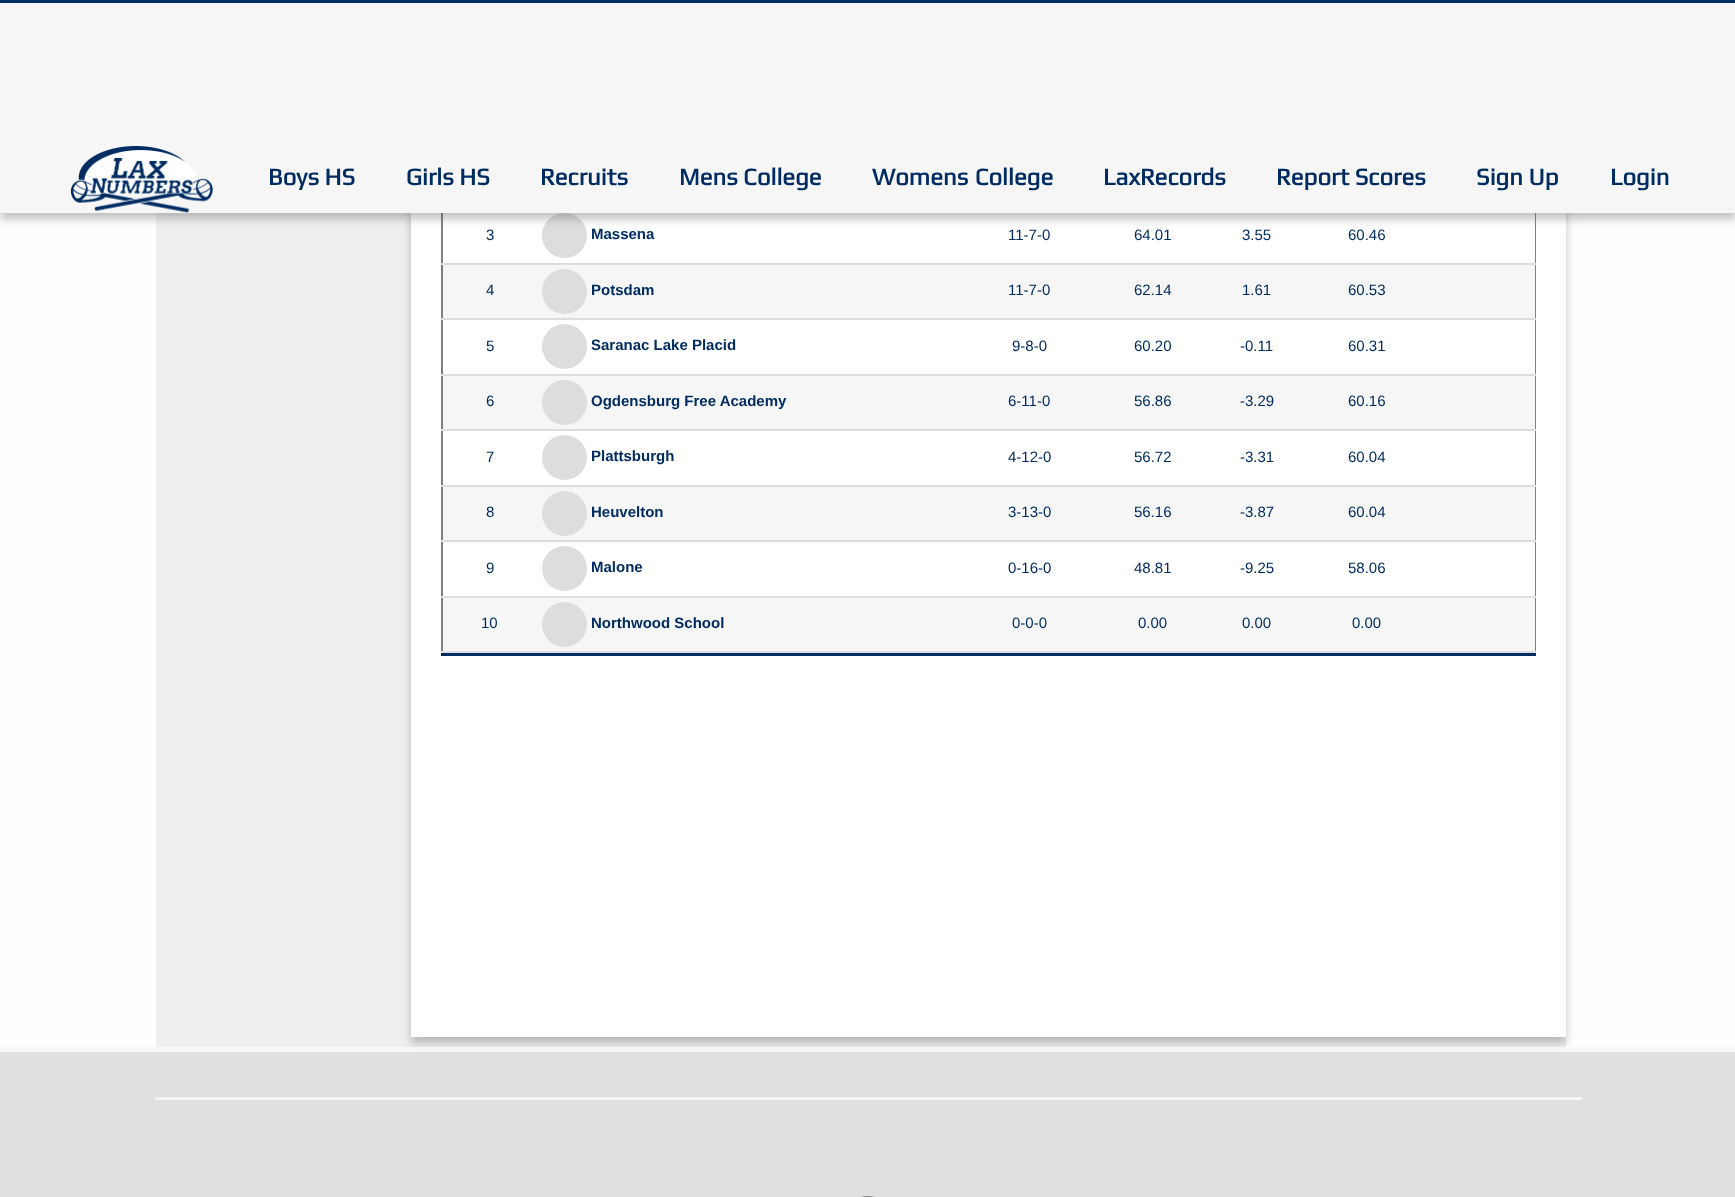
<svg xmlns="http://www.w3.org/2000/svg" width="1735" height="1197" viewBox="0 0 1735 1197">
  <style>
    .t1 { font: bold 24px Play; fill: #002c61; }
    .t2 { font: 15px Liberation Sans; fill: #002c61; }
    .t3 { font: bold 15px Liberation Sans; fill: #002c61; }
  </style>
  <rect width="100%" height="100%" fill="#fefefe"/>
  <rect x="156" y="213" width="255" height="839" fill="#efefef"/>
  <rect x="411" y="1037" width="1155" height="15" fill="#efefef"/>
  <rect x="411" y="-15" width="1155" height="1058" fill="#59595961" filter="blur(5px)"/>
  <rect x="411" y="213" width="1155" height="824" fill="#fff"/>
  <rect x="1535" y="213" width="1" height="440" fill="#808080"/>
  <rect x="441" y="213" width="2" height="440" fill="#808080"/>
  <circle cx="564.5" cy="235.5" r="22.5" fill="#ddd"/>
  <rect x="0" y="6" width="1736" height="213" fill="#59595961" filter="blur(5px)"/>
  <rect x="0" y="3" width="1735" height="210" fill="#f6f6f6"/>
  <rect x="0" y="0" width="1735" height="3" fill="#002c61"/>
  <image x="70" y="146" width="144" height="68" href="images/1.png"/>
  <text x="268" y="185" class="t1">Boys HS</text>
  <text x="406" y="185" class="t1">Girls HS</text>
  <text x="540" y="185" class="t1">Recruits</text>
  <text x="679" y="185" class="t1">Mens College</text>
  <text x="872" y="185" word-spacing="1" class="t1">Womens College</text>
  <text x="1103" y="185" class="t1">LaxRecords</text>
  <text x="1276" y="185" class="t1">Report Scores</text>
  <text x="1476" y="185" class="t1">Sign Up</text>
  <text x="1610" y="185" class="t1">Login</text>
  <rect x="441" y="653" width="1095" height="3" fill="#002c61"/>
  <text x="486" y="240" class="t2">3</text>
  <text x="591" y="239" class="t3">Massena</text>
  <text x="1008" y="240" class="t2">11-7-0</text>
  <text x="1134" y="240" class="t2">64.01</text>
  <text x="1242" y="240" class="t2">3.55</text>
  <text x="1348" y="240" class="t2">60.46</text>
  <rect x="441" y="263" width="1095" height="2" fill="#ddd"/>
  <rect x="443" y="265" width="1092" height="53" fill="#f6f6f6"/>
  <text x="486" y="295" class="t2">4</text>
  <circle cx="564.5" cy="291.5" r="22.5" fill="#ddd"/>
  <text x="591" y="295" class="t3">Potsdam</text>
  <text x="1008" y="295" class="t2">11-7-0</text>
  <text x="1134" y="295" class="t2">62.14</text>
  <text x="1242" y="295" class="t2">1.61</text>
  <text x="1348" y="295" class="t2">60.53</text>
  <rect x="441" y="318" width="1095" height="2" fill="#ddd"/>
  <text x="486" y="351" class="t2">5</text>
  <circle cx="564.5" cy="346.5" r="22.5" fill="#ddd"/>
  <text x="591" y="350" class="t3">Saranac Lake Placid</text>
  <text x="1012" y="351" class="t2">9-8-0</text>
  <text x="1134" y="351" class="t2">60.20</text>
  <text x="1240" y="351" class="t2">-0.11</text>
  <text x="1348" y="351" class="t2">60.31</text>
  <rect x="441" y="374" width="1095" height="2" fill="#ddd"/>
  <rect x="443" y="376" width="1092" height="53" fill="#f6f6f6"/>
  <text x="486" y="406" class="t2">6</text>
  <circle cx="564.5" cy="402.5" r="22.5" fill="#ddd"/>
  <text x="591" y="406" class="t3">Ogdensburg Free Academy</text>
  <text x="1008" y="406" class="t2">6-11-0</text>
  <text x="1134" y="406" class="t2">56.86</text>
  <text x="1240" y="406" class="t2">-3.29</text>
  <text x="1348" y="406" class="t2">60.16</text>
  <rect x="441" y="429" width="1095" height="2" fill="#ddd"/>
  <text x="486" y="462" class="t2">7</text>
  <circle cx="564.5" cy="457.5" r="22.5" fill="#ddd"/>
  <text x="591" y="461" class="t3">Plattsburgh</text>
  <text x="1008" y="462" class="t2">4-12-0</text>
  <text x="1134" y="462" class="t2">56.72</text>
  <text x="1240" y="462" class="t2">-3.31</text>
  <text x="1348" y="462" class="t2">60.04</text>
  <rect x="441" y="485" width="1095" height="2" fill="#ddd"/>
  <rect x="443" y="487" width="1092" height="53" fill="#f6f6f6"/>
  <text x="486" y="517" class="t2">8</text>
  <circle cx="564.5" cy="513.5" r="22.5" fill="#ddd"/>
  <text x="591" y="517" class="t3">Heuvelton</text>
  <text x="1008" y="517" class="t2">3-13-0</text>
  <text x="1134" y="517" class="t2">56.16</text>
  <text x="1240" y="517" class="t2">-3.87</text>
  <text x="1348" y="517" class="t2">60.04</text>
  <rect x="441" y="540" width="1095" height="2" fill="#ddd"/>
  <text x="486" y="573" class="t2">9</text>
  <circle cx="564.5" cy="568.5" r="22.5" fill="#ddd"/>
  <text x="591" y="572" class="t3">Malone</text>
  <text x="1008" y="573" class="t2">0-16-0</text>
  <text x="1134" y="573" class="t2">48.81</text>
  <text x="1240" y="573" class="t2">-9.25</text>
  <text x="1348" y="573" class="t2">58.06</text>
  <rect x="441" y="596" width="1095" height="2" fill="#ddd"/>
  <rect x="443" y="598" width="1092" height="53" fill="#f6f6f6"/>
  <text x="481" y="628" class="t2">10</text>
  <circle cx="564.5" cy="624.5" r="22.5" fill="#ddd"/>
  <text x="591" y="628" class="t3">Northwood School</text>
  <text x="1012" y="628" class="t2">0-0-0</text>
  <text x="1138" y="628" class="t2">0.00</text>
  <text x="1242" y="628" class="t2">0.00</text>
  <text x="1352" y="628" class="t2">0.00</text>
  <rect x="441" y="651" width="1095" height="2" fill="#ddd"/>
  <rect x="0" y="1052" width="1735" height="145" fill="#0d131d"/>
  <rect x="155" y="1097" width="1426" height="1" fill="#9f9f9f"/>
  <rect x="1580" y="1097" width="2" height="3" fill="#eee"/>
  <rect x="155" y="1098" width="1426" height="2" fill="#eee"/>
  <rect x="155" y="1097" width="2" height="3" fill="#9f9f9f"/>
  <rect x="0" y="1047" width="1735" height="150" fill="#f7f7f7e6"/>
  <rect x="852" y="1197" width="31" height="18" rx="15.5" fill="none" stroke="#f1f1f2" stroke-width="2"/>
  <rect x="852" y="1197" width="31" height="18" rx="15.5" fill="none" stroke="#888" stroke-width="2"/>
</svg>
